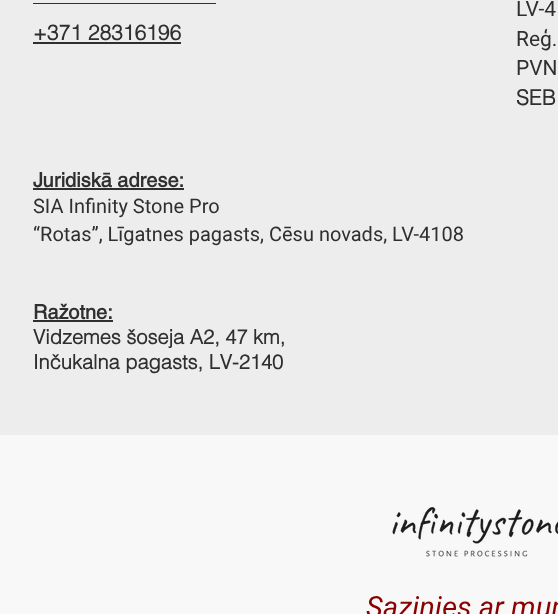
<svg xmlns="http://www.w3.org/2000/svg" width="558" height="614" viewBox="0 0 558 614">
  <style>
    .t1 { font: 21px Roboto; fill: #2f2f30; }
    .t2 { font: bold 21px helvetica; fill: #2f2f30; }
    .t3 { font: bold 20px 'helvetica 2'; fill: #2f2f30; }
    .t4 { font: 20px Roboto; fill: #2f2f30; }
    .t5 { font: bold 20px helvetica; fill: #2f2f30; }
    .t6 { font: italic 29px Roboto; fill: #8b0000; }
  </style>
  <rect width="100%" height="100%" fill="#ededed"/>
  <rect x="33" y="3" width="183" height="1" fill="#2f2f30"/>
  <text x="516" y="16" class="t1">LV-4</text>
  <text x="516" y="46" class="t1">Reģ.</text>
  <text x="516" y="75" class="t1">PVN</text>
  <text x="516" y="105" class="t2">SEB</text>
  <text x="33" y="40" class="t2">+371 28316196</text>
  <rect x="33" y="42" width="148" height="2" fill="#2f2f30"/>
  <text x="33" y="187" class="t3">Juridiskā adrese:</text>
  <rect x="33" y="188" width="151" height="2" fill="#2f2f30"/>
  <text x="33" y="213" class="t4">SIA Infinity Stone Pro</text>
  <text x="33" y="241" class="t4">“Rotas”, Līgatnes pagasts, Cēsu novads, LV-4108</text>
  <text x="33" y="319" class="t3">Ražotne:</text>
  <rect x="33" y="320" width="80" height="2" fill="#2f2f30"/>
  <text x="33" y="344" class="t5">Vidzemes šoseja A2, 47 km,</text>
  <text x="33" y="369" class="t5">Inčukalna pagasts, LV-2140</text>
  <rect x="0" y="435" width="558" height="179" fill="#f8f8f8"/>
  <image x="392" y="507" width="166" height="50" href="images/1.png"/>
  <text x="366" y="617" class="t6">Sazinies ar mum</text>
</svg>
